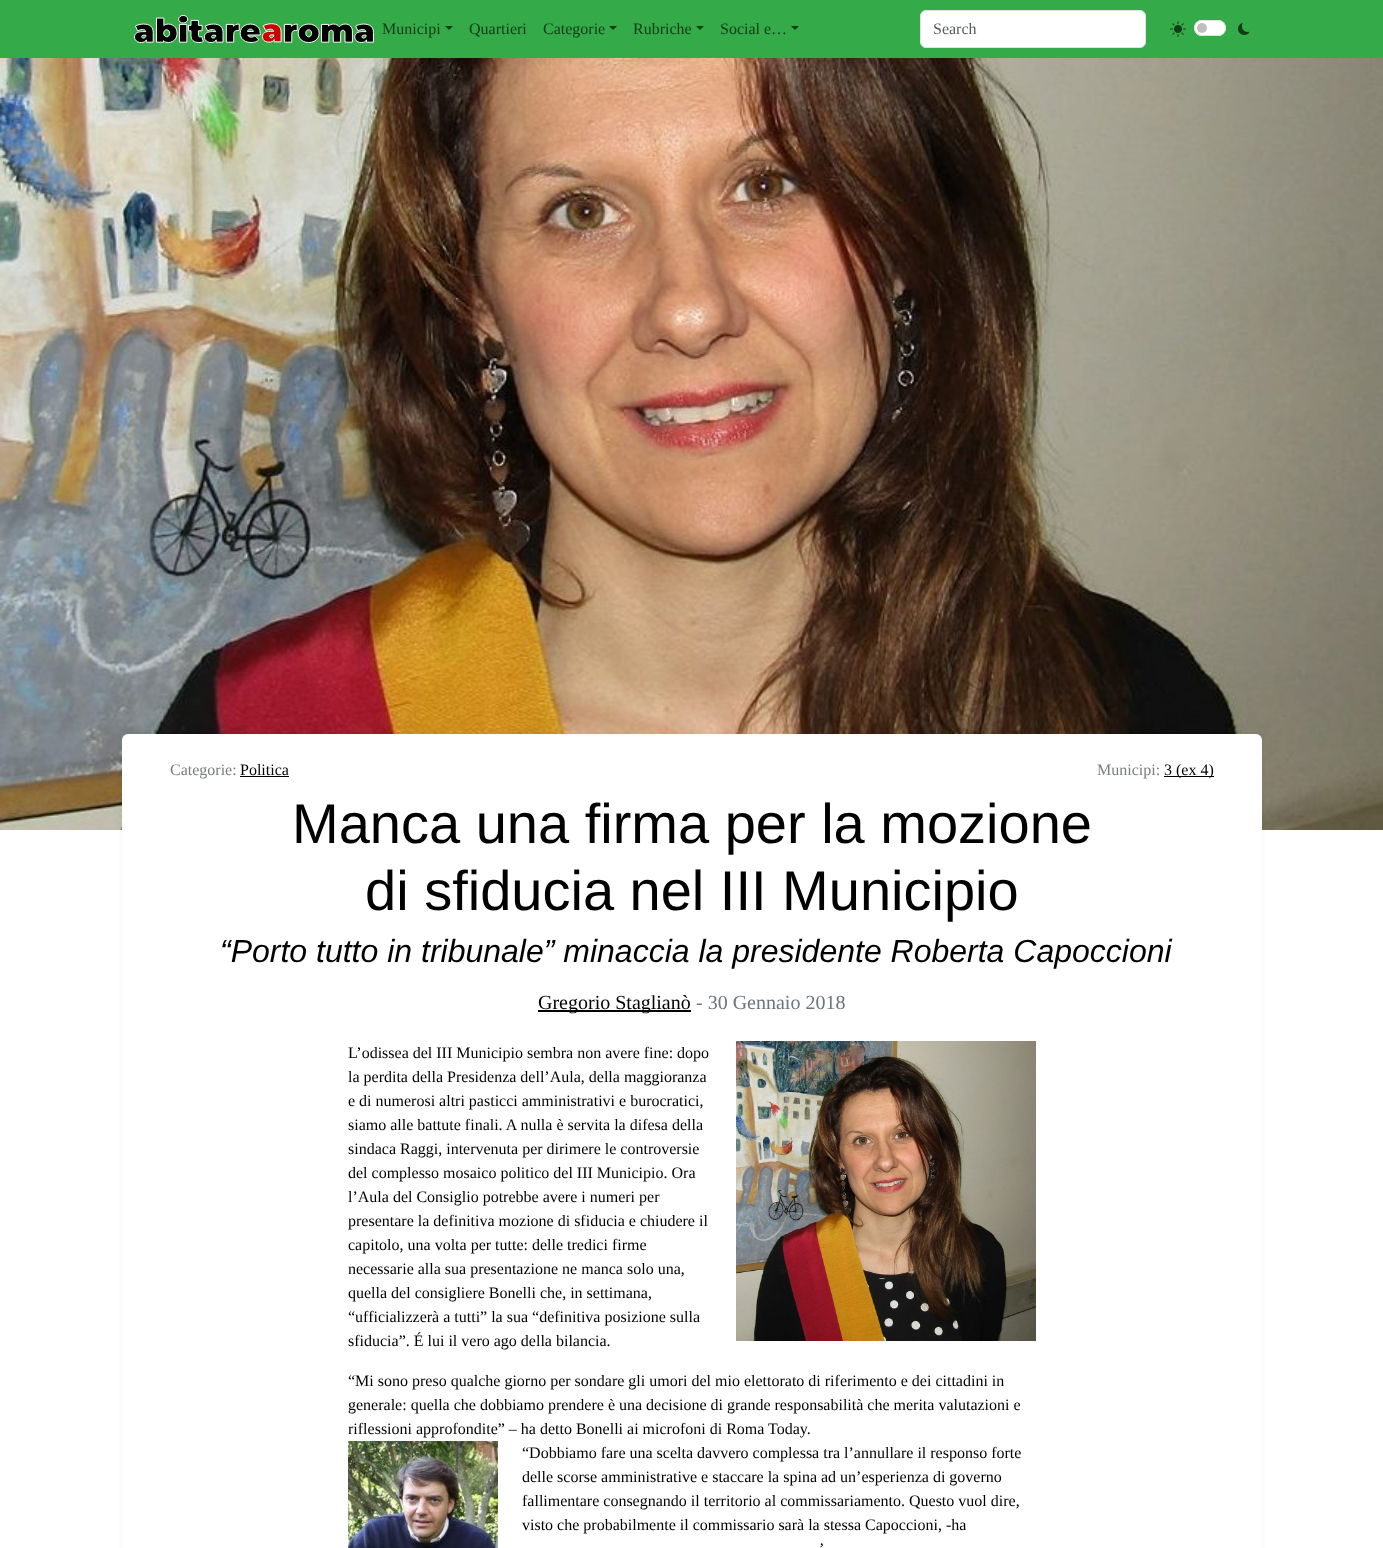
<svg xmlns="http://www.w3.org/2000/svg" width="1383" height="1548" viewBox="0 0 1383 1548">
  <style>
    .t1 { font: 16px Liberation Serif; fill: #123c19; }
    .t2 { font: 16px Liberation Serif; fill: #595c5f; }
    .t3 { font: 16px Liberation Serif; fill: #7a7c7f; }
    .t4 { font: 16px Liberation Serif; fill: #000; }
    .t5 { font: 56px Liberation Sans; fill: #000; }
    .t6 { font: italic 32px Liberation Sans; fill: #000; }
    .t7 { font: 20px Liberation Serif; fill: #000; }
    .t8 { font: 20px Liberation Serif; fill: #6c757d; }
  </style>
  <rect width="100%" height="100%" fill="#fff"/>
  <rect x="0" y="0" width="1383" height="58" fill="#34aa48"/>
  <image x="134" y="15" width="240" height="28" href="images/1.png"/>
  <text x="382" y="34" class="t1">Municipi</text>
  <path d="M445 26H453L449 30Z" fill="#123c19"/>
  <text x="469" y="34" class="t1">Quartieri</text>
  <text x="543" y="34" class="t1">Categorie</text>
  <path d="M609 26H617L613 30Z" fill="#123c19"/>
  <text x="633" y="34" class="t1">Rubriche</text>
  <path d="M696 26H704L700 30Z" fill="#123c19"/>
  <text x="720" y="34" class="t1">Social e…</text>
  <path d="M791 26H799L795 30Z" fill="#123c19"/>
  <rect x="920.5" y="10.5" width="225" height="37" rx="5.5" fill="#fff" stroke="#dee2e6"/>
  <text x="933" y="34" class="t2">Search</text>
  <image x="1170" y="21" width="16" height="16" href="images/2.png"/>
  <rect x="1194" y="20" width="32" height="16" rx="8" fill="#fff"/>
  <circle cx="1202" cy="28" r="5" fill="#bfbfbf"/>
  <rect x="1194.5" y="20.5" width="31" height="15" rx="7.5" fill="none" stroke="#dee2e6"/>
  <image x="1238" y="23" width="12" height="12" href="images/3.png"/>
  <image x="0" y="58" width="1383" height="772" href="images/4.png"/>
  <rect x="122" y="736" width="1140" height="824" rx="6" fill="#00000012" filter="blur(2px)"/>
  <rect x="122" y="734" width="1140" height="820" rx="6" fill="#fff"/>
  <text x="170" y="775" class="t3">Categorie:</text>
  <text x="240" y="775" class="t4">Politica</text>
  <rect x="240" y="776" width="49" height="1" fill="#000"/>
  <text x="1097" y="775" class="t3">Municipi:</text>
  <rect x="1164" y="776" width="50" height="1" fill="#000"/>
  <text x="1164" y="775" class="t4">3 (ex 4)</text>
  <text x="292" y="843" class="t5">Manca una firma per la mozione</text>
  <text x="365" y="910" class="t5">di sfiducia nel III Municipio</text>
  <text x="220" y="962" class="t6">“Porto tutto in tribunale” minaccia la presidente Roberta Capoccioni</text>
  <rect x="538" y="1010" width="153" height="2" fill="#000"/>
  <text x="538" y="1009" class="t7">Gregorio Staglianò</text>
  <text x="696" y="1009" class="t8">- 30 Gennaio 2018</text>
  <text x="348" y="1058" class="t4">L’odissea del III Municipio sembra non avere fine: dopo</text>
  <image x="736" y="1041" width="300" height="300" href="images/5.png"/>
  <text x="348" y="1082" class="t4">la perdita della Presidenza dell’Aula, della maggioranza</text>
  <text x="348" y="1106" class="t4">e di numerosi altri pasticci amministrativi e burocratici,</text>
  <text x="348" y="1130" class="t4">siamo alle battute finali. A nulla è servita la difesa della</text>
  <text x="348" y="1154" class="t4">sindaca Raggi, intervenuta per dirimere le controversie</text>
  <text x="348" y="1178" class="t4">del complesso mosaico politico del III Municipio. Ora</text>
  <text x="348" y="1202" class="t4">l’Aula del Consiglio potrebbe avere i numeri per</text>
  <text x="348" y="1226" class="t4">presentare la definitiva mozione di sfiducia e chiudere il</text>
  <text x="348" y="1250" class="t4">capitolo, una volta per tutte: delle tredici firme</text>
  <text x="348" y="1274" class="t4">necessarie alla sua presentazione ne manca solo una,</text>
  <text x="348" y="1298" class="t4">quella del consigliere Bonelli che, in settimana,</text>
  <text x="348" y="1322" class="t4">“ufficializzerà a tutti” la sua “definitiva posizione sulla</text>
  <text x="348" y="1346" class="t4">sfiducia”. É lui il vero ago della bilancia.</text>
  <text x="348" y="1386" class="t4">“Mi sono preso qualche giorno per sondare gli umori del mio elettorato di riferimento e dei cittadini in</text>
  <text x="348" y="1410" class="t4">generale: quella che dobbiamo prendere è una decisione di grande responsabilità che merita valutazioni e</text>
  <text x="348" y="1434" class="t4">riflessioni approfondite” – ha detto Bonelli ai microfoni di Roma Today.</text>
  <image x="348" y="1441" width="150" height="107" href="images/6.png"/>
  <text x="522" y="1458" class="t4">“Dobbiamo fare una scelta davvero complessa tra l’annullare il responso forte</text>
  <text x="522" y="1482" class="t4">delle scorse amministrative e staccare la spina ad un’esperienza di governo</text>
  <text x="522" y="1506" class="t4">fallimentare consegnando il territorio al commissariamento. Questo vuol dire,</text>
  <text x="522" y="1530" class="t4">visto che probabilmente il commissario sarà la stessa Capoccioni, -ha</text>
  <text x="819" y="1554" class="t4">’</text>
</svg>
